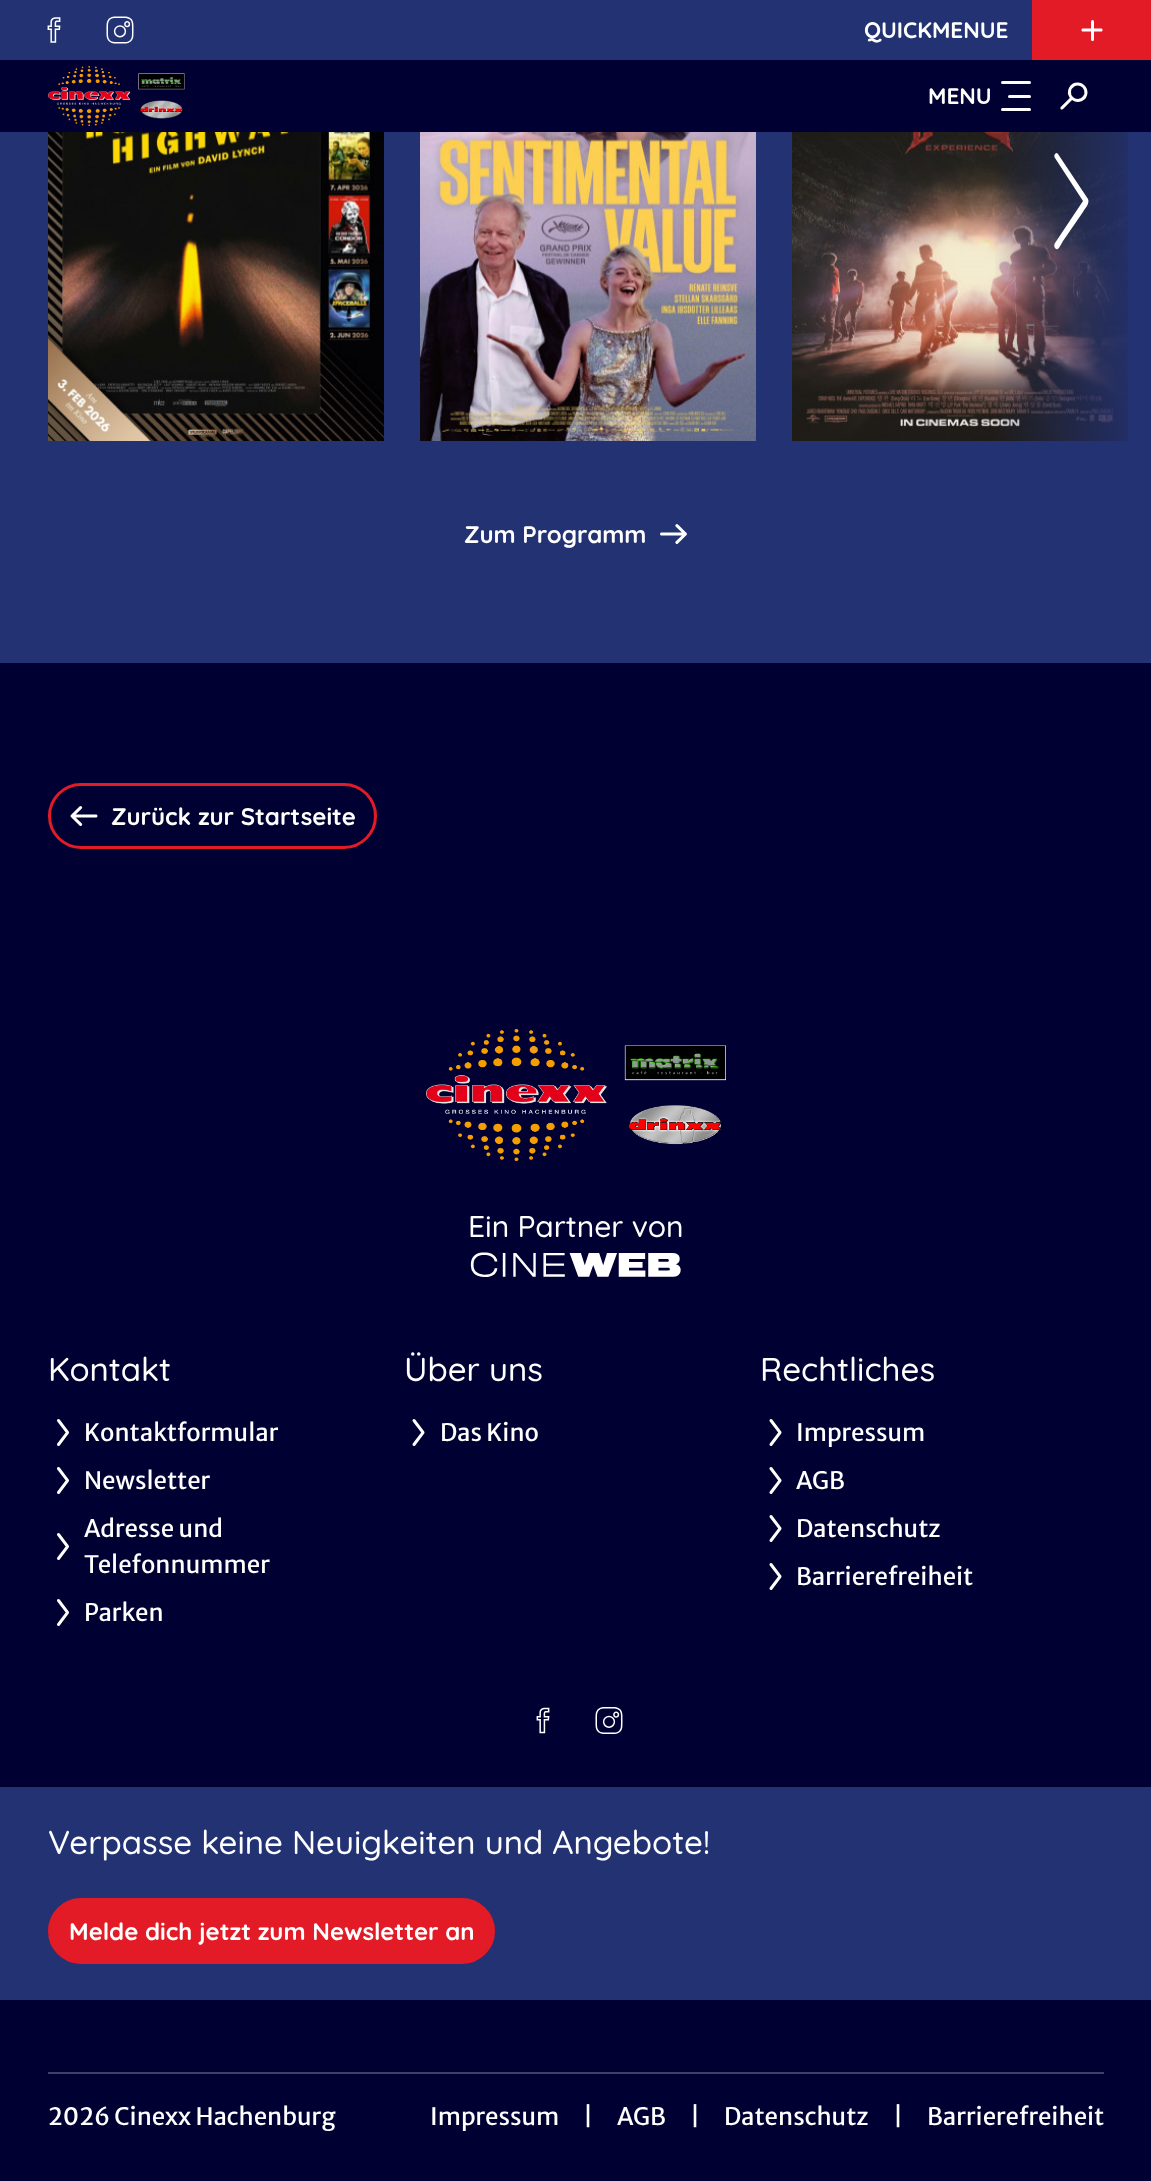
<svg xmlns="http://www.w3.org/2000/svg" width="1151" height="2181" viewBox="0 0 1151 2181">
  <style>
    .t1 { font: 300 22.5px Quicksand; fill: #fff; }
    .t2 { font: 300 24px Quicksand; fill: #fff; }
    .t3 { font: 300 30px 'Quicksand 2'; fill: #fff; }
    .t4 { font: 300 33px 'Quicksand 2'; fill: #fff; }
    .t5 { font: 24px Merriweather Sans; fill: #fff; }
  </style>
  <defs>
    <linearGradient id="g1" gradientUnits="userSpaceOnUse" x1="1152" y1="203" x2="992" y2="203"><stop offset="0" stop-color="#233273"/><stop offset="1" stop-color="#233273" stop-opacity="0"/></linearGradient>
  </defs>
  <rect width="100%" height="100%" fill="#003"/>
  <rect x="0" y="0" width="1032" height="60" fill="#233273"/>
  <image x="47" y="17" width="14" height="26" href="images/1.png"/>
  <image x="106" y="16" width="28" height="28" href="images/2.png"/>
  <text x="864" y="38" class="t1">QUICKMENUE</text>
  <rect x="1032" y="0" width="119" height="60" fill="#e31b26"/>
  <rect x="1091" y="20" width="3" height="21" rx="1.5" fill="#fff"/>
  <path d="M1102.5 30C1102.5 31 1102 31.5 1101 31.5H1083C1082 31.5 1081.5 31 1081.5 30C1081.5 29 1082 28.5 1083 28.5H1101C1102 28.5 1102.5 29 1102.5 30Z" fill="#fff"/>
  <image x="48" y="66" width="137" height="60" href="images/3.png"/>
  <text x="928" y="104" class="t1">MENU</text>
  <rect x="1001" y="81" width="30" height="3" rx="1.5" fill="#fff"/>
  <rect x="1008" y="95" width="23" height="3" rx="1.5" fill="#fff"/>
  <rect x="1001" y="108" width="30" height="3" rx="1.5" fill="#fff"/>
  <image x="1060" y="82" width="28" height="28" href="images/4.png"/>
  <rect x="0" y="132" width="1151" height="531" fill="#233273"/>
  <image x="48" y="132" width="336" height="309" href="images/5.png"/>
  <image x="420" y="132" width="336" height="309" href="images/6.png"/>
  <image x="792" y="132" width="336" height="309" href="images/7.png"/>
  <rect x="995" y="132" width="133" height="309" fill="url(#g1)"/>
  <path d="M1055 248C1054 247 1054 245 1055 243L1083 201L1055 158C1054 157 1054 153 1057 153L1058 154L1088 199C1090 204 1085 208 1083 212L1063 241C1060 246 1058 252 1055 248Z" fill="#fff"/>
  <text x="464" y="543" class="t2">Zum Programm</text>
  <image x="660" y="524" width="27" height="20" href="images/8.png"/>
  <rect x="49.5" y="784.5" width="326" height="63" rx="31.5" fill="none" stroke="#e31b26" stroke-width="3"/>
  <image x="70" y="806" width="28" height="20" href="images/9.png"/>
  <text x="111" y="825" class="t2">Zurück zur Startseite</text>
  <image x="426" y="1029" width="300" height="132" href="images/10.png"/>
  <text x="468" y="1237" class="t3">Ein Partner von</text>
  <image x="470" y="1252" width="211" height="25" href="images/11.png"/>
  <text x="48" y="1381" class="t4">Kontakt</text>
  <image x="57" y="1419" width="12" height="27" href="images/12.png"/>
  <text x="84" y="1441" class="t5">Kontaktformular</text>
  <image x="57" y="1467" width="12" height="27" href="images/13.png"/>
  <text x="84" y="1489" class="t5">Newsletter</text>
  <image x="57" y="1533" width="12" height="27" href="images/12.png"/>
  <text x="84" y="1537" class="t5">Adresse und</text>
  <text x="84" y="1573" class="t5">Telefonnummer</text>
  <image x="57" y="1599" width="12" height="27" href="images/12.png"/>
  <text x="84" y="1621" class="t5">Parken</text>
  <text x="404" y="1381" class="t4">Über uns</text>
  <image x="412" y="1419" width="13" height="27" href="images/14.png"/>
  <text x="440" y="1441" class="t5">Das Kino</text>
  <text x="760" y="1381" class="t4">Rechtliches</text>
  <image x="769" y="1419" width="13" height="27" href="images/14.png"/>
  <text x="796" y="1441" class="t5">Impressum</text>
  <image x="769" y="1467" width="13" height="27" href="images/15.png"/>
  <text x="796" y="1489" class="t5">AGB</text>
  <image x="769" y="1515" width="13" height="27" href="images/14.png"/>
  <text x="796" y="1537" class="t5">Datenschutz</text>
  <image x="769" y="1563" width="13" height="27" href="images/14.png"/>
  <text x="796" y="1585" class="t5">Barrierefreiheit</text>
  <image x="536" y="1707" width="14" height="27" href="images/16.png"/>
  <image x="595" y="1707" width="28" height="27" href="images/17.png"/>
  <rect x="0" y="1787" width="1151" height="213" fill="#233273"/>
  <text x="48" y="1854" class="t4">Verpasse keine Neuigkeiten und Angebote!</text>
  <rect x="49.5" y="1899.5" width="444" height="63" rx="31.5" fill="#e31b26" stroke="#e31b26" stroke-width="3"/>
  <text x="69" y="1940" class="t2">Melde dich jetzt zum Newsletter an</text>
  <rect x="48" y="2072" width="1056" height="2" fill="#404066"/>
  <text x="48" y="2125" class="t5">2026 Cinexx Hachenburg</text>
  <text x="430" y="2125" class="t5">Impressum</text>
  <text x="583" y="2125" class="t5">|</text>
  <text x="617" y="2125" class="t5">AGB</text>
  <text x="690" y="2125" class="t5">|</text>
  <text x="724" y="2125" class="t5">Datenschutz</text>
  <text x="893" y="2125" class="t5">|</text>
  <text x="927" y="2125" class="t5">Barrierefreiheit</text>
</svg>
